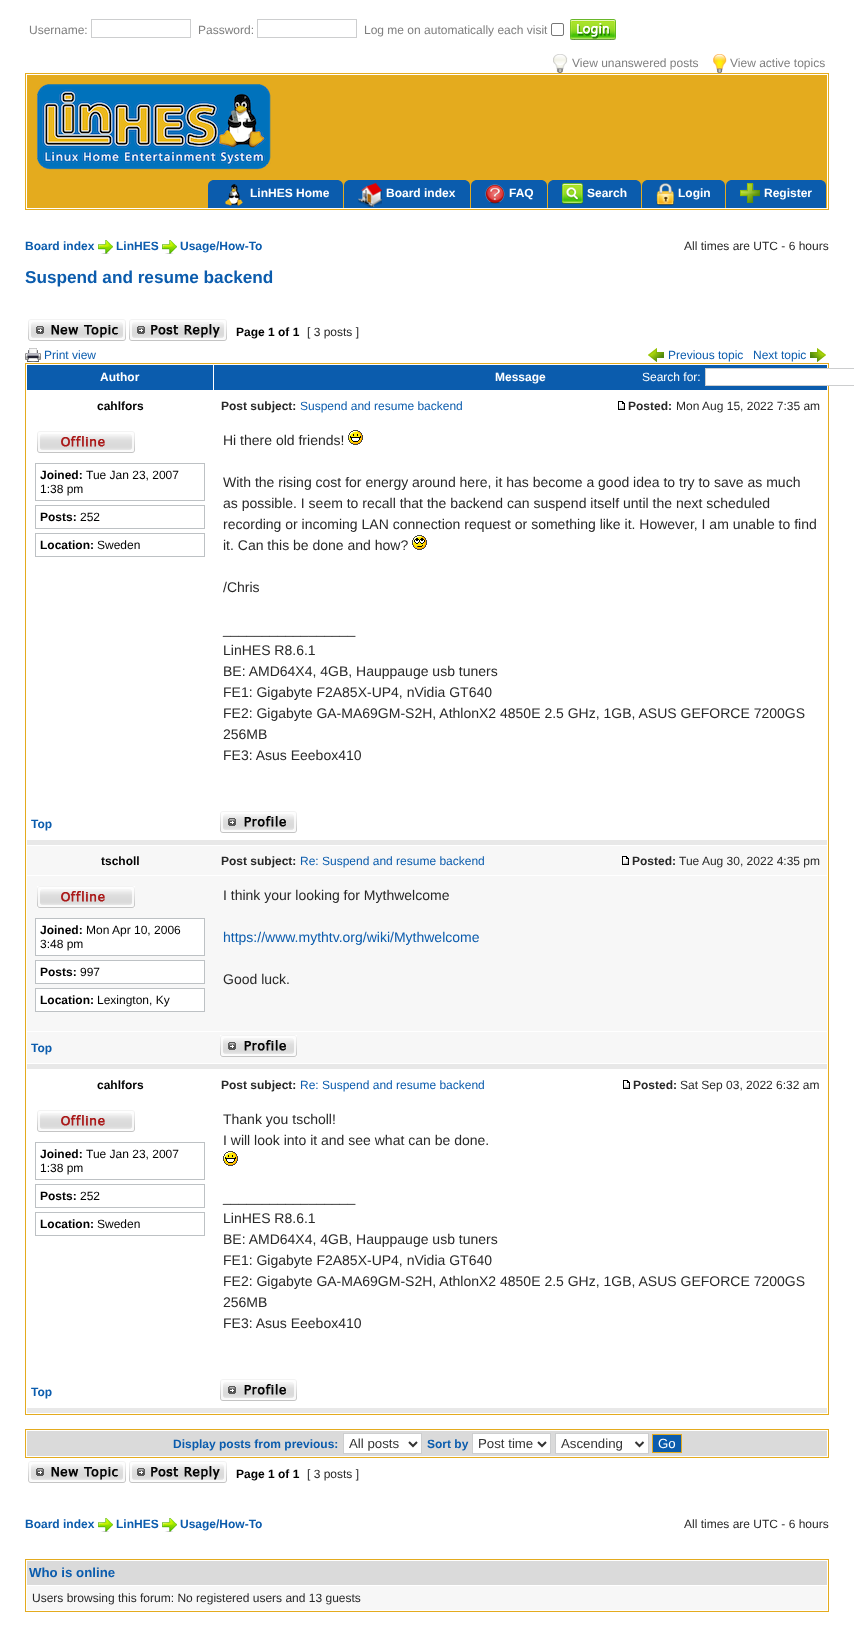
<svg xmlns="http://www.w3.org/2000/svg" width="854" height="1637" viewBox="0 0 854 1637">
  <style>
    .t1 { font: 12px Liberation Sans; fill: #7f7f7f; }
    .t2 { font: bold 12px Liberation Sans; fill: #fff; }
    .t3 { font: bold 12px Liberation Sans; fill: #0b5cad; }
    .t4 { font: 12px Liberation Sans; fill: #282828; }
    .t5 { font: bold 17.2px Liberation Sans; fill: #0b5cad; }
    .t6 { font: bold 12px Liberation Sans; fill: #000; }
    .t7 { font: 12px Liberation Sans; fill: #0b5cad; }
    .t8 { font: 12px Liberation Sans; fill: #fff; }
    .t9 { font: bold 12px Liberation Sans; fill: #282828; }
    .t10 { font: 12px Liberation Sans; fill: #000; }
    .t11 { font: 14px Liberation Sans; fill: #282828; }
    .t12 { font: 14px Liberation Sans; fill: #0b5cad; }
    .t13 { font: 13.25px Liberation Sans; fill: #333; }
    .t14 { font: 13.25px Liberation Sans; fill: #fff; }
    .t15 { font: bold 13.25px Liberation Sans; fill: #0b5cad; }
  </style>
  <rect width="100%" height="100%" fill="#fff"/>
  <text x="29" y="34" class="t1">Username:</text>
  <rect x="91.5" y="19.5" width="99" height="18" fill="none" stroke="#cdcecf"/>
  <text x="198" y="34" class="t1">Password:</text>
  <rect x="257.5" y="19.5" width="99" height="18" fill="none" stroke="#cdcecf"/>
  <text x="364" y="34" class="t1">Log me on automatically each visit</text>
  <rect x="551.5" y="23.5" width="12" height="12" rx="1.5" fill="none" stroke="#767676"/>
  <image x="570" y="19" width="46" height="21" href="images/1.png"/>
  <image x="553" y="54" width="15" height="19" href="images/2.png"/>
  <text x="572" y="67" class="t1">View unanswered posts</text>
  <image x="713" y="54" width="14" height="19" href="images/3.png"/>
  <text x="730" y="67" class="t1">View active topics</text>
  <rect x="25.5" y="73.5" width="803" height="136" fill="none" stroke="#e4ab1e"/>
  <rect x="27" y="75" width="800" height="133" fill="#e4ab1e"/>
  <image x="36" y="84" width="235" height="86" href="images/4.png"/>
  <path d="M214 180H337C340.5 180 343 182.5 343 186V208H208V186C208 182.5 210.5 180 214 180Z" fill="#0b5cad"/>
  <image x="225" y="184" width="18" height="22" href="images/5.png"/>
  <text x="250" y="197" class="t2">LinHES Home</text>
  <path d="M350 180H464C467.5 180 470 182.5 470 186V208H344V186C344 182.5 346.5 180 350 180Z" fill="#0b5cad"/>
  <image x="358" y="183" width="24" height="24" href="images/6.png"/>
  <text x="386" y="197" class="t2">Board index</text>
  <path d="M477 180H541C544.5 180 547 182.5 547 186V208H471V186C471 182.5 473.5 180 477 180Z" fill="#0b5cad"/>
  <image x="485" y="184" width="20" height="20" href="images/7.png"/>
  <text x="509" y="197" class="t2">FAQ</text>
  <path d="M554 180H635C638.5 180 641 182.5 641 186V208H548V186C548 182.5 550.5 180 554 180Z" fill="#0b5cad"/>
  <image x="562" y="183" width="21" height="21" href="images/8.png"/>
  <text x="587" y="197" class="t2">Search</text>
  <path d="M648 180H719C722.5 180 725 182.5 725 186V208H642V186C642 182.5 644.5 180 648 180Z" fill="#0b5cad"/>
  <image x="656" y="183" width="18" height="23" href="images/9.png"/>
  <text x="678" y="197" class="t2">Login</text>
  <path d="M732 180H820C823.5 180 826 182.5 826 186V208H726V186C726 182.5 728.5 180 732 180Z" fill="#0b5cad"/>
  <image x="740" y="183" width="20" height="20" href="images/10.png"/>
  <text x="764" y="197" class="t2">Register</text>
  <text x="25" y="250" class="t3">Board index</text>
  <image x="98" y="240" width="15" height="14" href="images/11.png"/>
  <text x="116" y="250" class="t3">LinHES</text>
  <image x="162" y="240" width="15" height="14" href="images/11.png"/>
  <text x="180" y="250" class="t3">Usage/How-To</text>
  <text x="684" y="250" class="t4">All times are UTC - 6 hours</text>
  <text x="25" y="283" class="t5">Suspend and resume backend</text>
  <image x="28" y="319" width="98" height="22" href="images/12.png"/>
  <image x="129" y="319" width="98" height="22" href="images/13.png"/>
  <text x="236" y="336" class="t6">Page 1 of 1</text>
  <text x="307" y="336" class="t4">[ 3 posts ]</text>
  <image x="25" y="348" width="16" height="14" href="images/14.png"/>
  <text x="44" y="359" class="t7">Print view</text>
  <image x="648" y="348" width="16" height="14" href="images/15.png"/>
  <text x="668" y="359" class="t7">Previous topic</text>
  <text x="753" y="359" class="t7">Next topic</text>
  <image x="810" y="348" width="16" height="14" href="images/16.png"/>
  <rect x="25.5" y="363.5" width="803" height="1051" fill="none" stroke="#e4ab1e"/>
  <rect x="27" y="365" width="186" height="25" fill="#0b5cad"/>
  <text x="100" y="381" class="t2">Author</text>
  <rect x="214" y="365" width="613" height="25" fill="#0b5cad"/>
  <text x="495" y="381" class="t2">Message</text>
  <text x="642" y="381" class="t8">Search for:</text>
  <rect x="706" y="369" width="123" height="16" fill="#fff"/>
  <rect x="705.5" y="368.5" width="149" height="17" fill="none" stroke="#cdcecf"/>
  <text x="97" y="410" class="t6">cahlfors</text>
  <text x="221" y="410" class="t9">Post subject:</text>
  <text x="300" y="410" class="t7">Suspend and resume backend</text>
  <image x="618" y="401" width="7" height="9" href="images/17.png"/>
  <text x="628" y="410" class="t9">Posted:</text>
  <text x="676" y="410" class="t4">Mon Aug 15, 2022 7:35 am</text>
  <image x="37" y="431" width="98" height="22" href="images/18.png"/>
  <rect x="35.5" y="463.5" width="169" height="37" fill="none" stroke="#bdc1c4"/>
  <text x="40" y="479" class="t6">Joined:</text>
  <text x="86" y="479" class="t10">Tue Jan 23, 2007</text>
  <text x="40" y="493" class="t10">1:38 pm</text>
  <rect x="35.5" y="505.5" width="169" height="23" fill="none" stroke="#bdc1c4"/>
  <text x="40" y="521" class="t6">Posts:</text>
  <text x="80" y="521" class="t10">252</text>
  <rect x="35.5" y="533.5" width="169" height="23" fill="none" stroke="#bdc1c4"/>
  <text x="40" y="549" class="t6">Location:</text>
  <text x="97" y="549" class="t10">Sweden</text>
  <text x="223" y="445" class="t11">Hi there old friends!</text>
  <image x="348" y="430" width="15" height="15" href="images/19.png"/>
  <text x="223" y="487" class="t11">With the rising cost for energy around here, it has become a good idea to try to save as much</text>
  <text x="223" y="508" class="t11">as possible. I seem to recall that the backend can suspend itself until the next scheduled</text>
  <text x="223" y="529" class="t11">recording or incoming LAN connection request or something like it. However, I am unable to find</text>
  <text x="223" y="550" class="t11">it. Can this be done and how?</text>
  <image x="412" y="535" width="15" height="15" href="images/20.png"/>
  <text x="223" y="592" class="t11">/Chris</text>
  <text x="223" y="634" class="t11">_________________</text>
  <text x="223" y="655" class="t11">LinHES R8.6.1</text>
  <text x="223" y="676" class="t11">BE: AMD64X4, 4GB, Hauppauge usb tuners</text>
  <text x="223" y="697" class="t11">FE1: Gigabyte F2A85X-UP4, nVidia GT640</text>
  <text x="223" y="718" class="t11">FE2: Gigabyte GA-MA69GM-S2H, AthlonX2 4850E 2.5 GHz, 1GB, ASUS GEFORCE 7200GS</text>
  <text x="223" y="739" class="t11">256MB</text>
  <text x="223" y="760" class="t11">FE3: Asus Eeebox410</text>
  <text x="31" y="828" class="t3">Top</text>
  <image x="220" y="811" width="77" height="22" href="images/21.png"/>
  <rect x="27" y="840" width="800" height="5" fill="#e8e8e8"/>
  <rect x="27" y="846" width="800" height="29" fill="#f7f7f7"/>
  <text x="101" y="865" class="t6">tscholl</text>
  <text x="221" y="865" class="t9">Post subject:</text>
  <text x="300" y="865" class="t7">Re: Suspend and resume backend</text>
  <image x="622" y="856" width="7" height="9" href="images/22.png"/>
  <text x="632" y="865" class="t9">Posted:</text>
  <text x="679" y="865" class="t4">Tue Aug 30, 2022 4:35 pm</text>
  <rect x="27" y="876" width="800" height="155" fill="#f7f7f7"/>
  <image x="37" y="886" width="98" height="22" href="images/18.png"/>
  <rect x="35.5" y="918.5" width="169" height="37" fill="#fff" stroke="#bdc1c4"/>
  <text x="40" y="934" class="t6">Joined:</text>
  <text x="86" y="934" class="t10">Mon Apr 10, 2006</text>
  <text x="40" y="948" class="t10">3:48 pm</text>
  <rect x="35.5" y="960.5" width="169" height="23" fill="#fff" stroke="#bdc1c4"/>
  <text x="40" y="976" class="t6">Posts:</text>
  <text x="80" y="976" class="t10">997</text>
  <rect x="35.5" y="988.5" width="169" height="23" fill="#fff" stroke="#bdc1c4"/>
  <text x="40" y="1004" class="t6">Location:</text>
  <text x="97" y="1004" class="t10">Lexington, Ky</text>
  <text x="223" y="900" class="t11">I think your looking for Mythwelcome</text>
  <text x="223" y="942" class="t12">https://www.mythtv.org/wiki/Mythwelcome</text>
  <text x="223" y="984" class="t11">Good luck.</text>
  <rect x="27" y="1032" width="800" height="31" fill="#f7f7f7"/>
  <text x="31" y="1052" class="t3">Top</text>
  <image x="220" y="1035" width="77" height="22" href="images/21.png"/>
  <rect x="27" y="1064" width="800" height="5" fill="#e8e8e8"/>
  <text x="97" y="1089" class="t6">cahlfors</text>
  <text x="221" y="1089" class="t9">Post subject:</text>
  <text x="300" y="1089" class="t7">Re: Suspend and resume backend</text>
  <image x="623" y="1080" width="7" height="9" href="images/17.png"/>
  <text x="633" y="1089" class="t9">Posted:</text>
  <text x="680" y="1089" class="t4">Sat Sep 03, 2022 6:32 am</text>
  <image x="37" y="1110" width="98" height="22" href="images/18.png"/>
  <rect x="35.5" y="1142.5" width="169" height="37" fill="none" stroke="#bdc1c4"/>
  <text x="40" y="1158" class="t6">Joined:</text>
  <text x="86" y="1158" class="t10">Tue Jan 23, 2007</text>
  <text x="40" y="1172" class="t10">1:38 pm</text>
  <rect x="35.5" y="1184.5" width="169" height="23" fill="none" stroke="#bdc1c4"/>
  <text x="40" y="1200" class="t6">Posts:</text>
  <text x="80" y="1200" class="t10">252</text>
  <rect x="35.5" y="1212.5" width="169" height="23" fill="none" stroke="#bdc1c4"/>
  <text x="40" y="1228" class="t6">Location:</text>
  <text x="97" y="1228" class="t10">Sweden</text>
  <text x="223" y="1124" class="t11">Thank you tscholl!</text>
  <text x="223" y="1145" class="t11">I will look into it and see what can be done.</text>
  <image x="223" y="1151" width="15" height="15" href="images/19.png"/>
  <text x="223" y="1202" class="t11">_________________</text>
  <text x="223" y="1223" class="t11">LinHES R8.6.1</text>
  <text x="223" y="1244" class="t11">BE: AMD64X4, 4GB, Hauppauge usb tuners</text>
  <text x="223" y="1265" class="t11">FE1: Gigabyte F2A85X-UP4, nVidia GT640</text>
  <text x="223" y="1286" class="t11">FE2: Gigabyte GA-MA69GM-S2H, AthlonX2 4850E 2.5 GHz, 1GB, ASUS GEFORCE 7200GS</text>
  <text x="223" y="1307" class="t11">256MB</text>
  <text x="223" y="1328" class="t11">FE3: Asus Eeebox410</text>
  <text x="31" y="1396" class="t3">Top</text>
  <image x="220" y="1379" width="77" height="22" href="images/21.png"/>
  <rect x="27" y="1408" width="800" height="5" fill="#e8e8e8"/>
  <rect x="25.5" y="1429.5" width="803" height="28" fill="none" stroke="#e4ab1e"/>
  <rect x="27" y="1431" width="800" height="25" fill="#dadada"/>
  <text x="173" y="1448" class="t3">Display posts from previous:</text>
  <rect x="343.5" y="1433.5" width="78" height="20" fill="#fff" stroke="#cdcecf"/>
  <path d="M409 1442L413 1446L417 1442" fill="none" stroke="#333" stroke-width="2"/>
  <text x="349" y="1448" class="t13">All posts</text>
  <text x="427" y="1448" class="t3">Sort by</text>
  <rect x="472.5" y="1433.5" width="78" height="20" fill="#fff" stroke="#cdcecf"/>
  <path d="M538 1442L542 1446L546 1442" fill="none" stroke="#333" stroke-width="2"/>
  <text x="478" y="1448" class="t13">Post time</text>
  <rect x="555.5" y="1433.5" width="93" height="20" fill="#fff" stroke="#cdcecf"/>
  <path d="M635.5 1442L639.5 1446L643.5 1442" fill="none" stroke="#333" stroke-width="2"/>
  <text x="561" y="1448" class="t13">Ascending</text>
  <rect x="652.5" y="1434.5" width="29" height="18" fill="#0b5cad" stroke="#e4ab1e"/>
  <text x="658" y="1448" class="t14">Go</text>
  <image x="28" y="1461" width="98" height="22" href="images/12.png"/>
  <image x="129" y="1461" width="98" height="22" href="images/13.png"/>
  <text x="236" y="1478" class="t6">Page 1 of 1</text>
  <text x="307" y="1478" class="t4">[ 3 posts ]</text>
  <text x="25" y="1528" class="t3">Board index</text>
  <image x="98" y="1518" width="15" height="14" href="images/11.png"/>
  <text x="116" y="1528" class="t3">LinHES</text>
  <image x="162" y="1518" width="15" height="14" href="images/11.png"/>
  <text x="180" y="1528" class="t3">Usage/How-To</text>
  <text x="684" y="1528" class="t4">All times are UTC - 6 hours</text>
  <rect x="25.5" y="1559.5" width="803" height="52" fill="none" stroke="#e4ab1e"/>
  <rect x="27" y="1561" width="800" height="24" fill="#dadada"/>
  <text x="29" y="1577" class="t15">Who is online</text>
  <rect x="27" y="1586" width="800" height="24" fill="#f7f7f7"/>
  <text x="32" y="1602" class="t4">Users browsing this forum: No registered users and 13 guests</text>
</svg>
